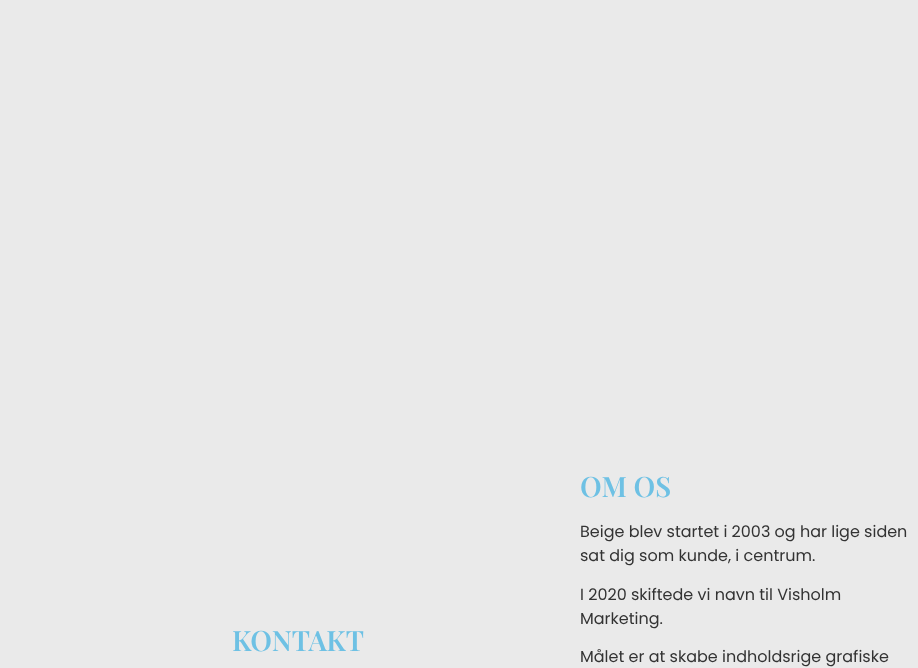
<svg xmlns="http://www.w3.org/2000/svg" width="918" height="668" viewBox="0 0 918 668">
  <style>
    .t1 { font: 600 28px Playfair Display; fill: #6ec1e4; }
    .t2 { font: 16px Poppins; fill: #333; }
  </style>
  <rect width="100%" height="100%" fill="#eaeaea"/>
  <text x="232" y="651" class="t1">KONTAKT</text>
  <text x="580" y="497" class="t1">OM OS</text>
  <text x="580" y="537" class="t2">Beige blev startet i 2003 og har lige siden</text>
  <text x="580" y="561" class="t2">sat dig som kunde, i centrum.</text>
  <text x="580" y="600" class="t2">I 2020 skiftede vi navn til Visholm</text>
  <text x="580" y="624" class="t2">Marketing.</text>
  <text x="580" y="662" class="t2">Målet er at skabe indholdsrige grafiske</text>
</svg>
